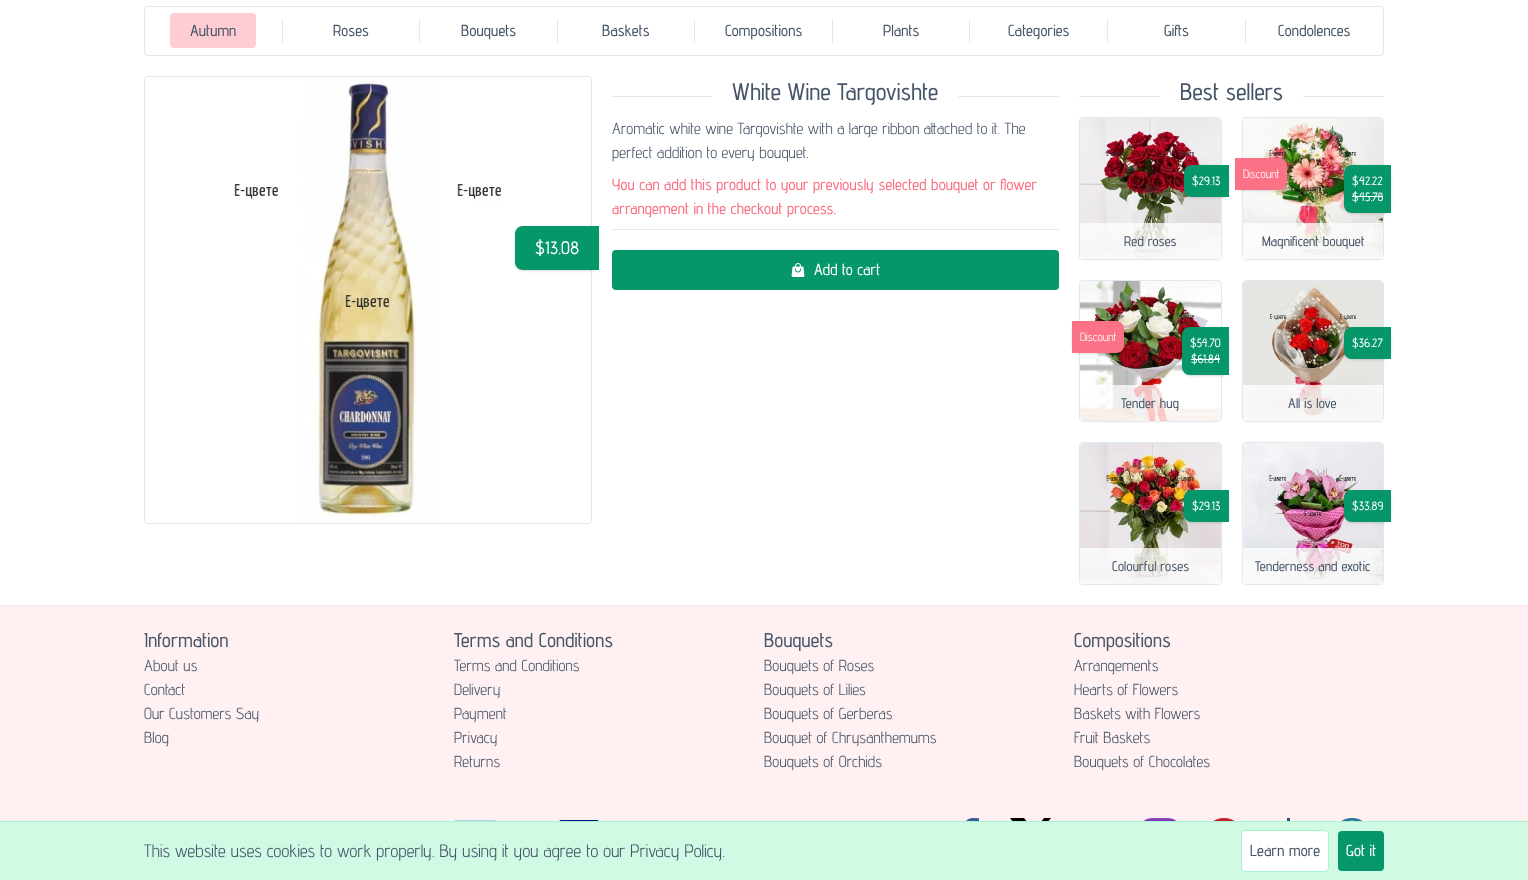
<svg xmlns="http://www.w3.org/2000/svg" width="1528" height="880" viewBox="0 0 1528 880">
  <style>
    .t1 { font: 500 16px Advent Pro; fill: #475569; }
    .t2 { font: 500 18px Advent Pro; fill: #fff; }
    .t3 { font: 500 24px Advent Pro; fill: #475569; }
    .t4 { font: 16px Advent Pro; fill: #475569; }
    .t5 { font: 500 16px Advent Pro; fill: #fb7185; }
    .t6 { font: 500 16px Advent Pro; fill: #fff; }
    .t7 { font: 500 12px Advent Pro; fill: #fff; }
    .t8 { font: 500 14px Advent Pro; fill: #475569; }
    .t9 { font: 12px Advent Pro; fill: #fff; }
    .t10 { font: 500 20px Advent Pro; fill: #475569; }
    .t11 { font: 18px Advent Pro; fill: #475569; }
  </style>
  <rect width="100%" height="100%" fill="#fff"/>
  <rect x="144.5" y="6.5" width="1239" height="49" rx="3.5" fill="none" stroke="#e5e7eb"/>
  <rect x="282" y="19" width="1" height="24" fill="#e5e7eb"/>
  <rect x="170" y="13" width="86" height="35" rx="4" fill="#fecdd3"/>
  <text x="190" y="36" class="t1">Autumn</text>
  <rect x="419" y="19" width="1" height="24" fill="#e5e7eb"/>
  <text x="333" y="36" class="t1">Roses</text>
  <rect x="557" y="19" width="1" height="24" fill="#e5e7eb"/>
  <text x="461" y="36" class="t1">Bouquets</text>
  <rect x="694" y="19" width="1" height="24" fill="#e5e7eb"/>
  <text x="602" y="36" class="t1">Baskets</text>
  <rect x="832" y="19" width="1" height="24" fill="#e5e7eb"/>
  <text x="725" y="36" class="t1">Compositions</text>
  <rect x="969" y="19" width="1" height="24" fill="#e5e7eb"/>
  <text x="883" y="36" class="t1">Plants</text>
  <rect x="1107" y="19" width="1" height="24" fill="#e5e7eb"/>
  <text x="1008" y="36" class="t1">Categories</text>
  <rect x="1245" y="19" width="1" height="24" fill="#e5e7eb"/>
  <text x="1164" y="36" class="t1">Gifts</text>
  <text x="1278" y="36" class="t1">Condolences</text>
  <rect x="145" y="78" width="446" height="446" rx="3" fill="#f1f5f9" filter="blur(1px)"/>
  <rect x="144.5" y="76.5" width="447" height="447" rx="3.5" fill="none" stroke="#e2e8f0"/>
  <image x="145" y="77" width="446" height="446" href="images/1.png"/>
  <rect x="516" y="228" width="82" height="42" rx="7" fill="#0000001a" filter="blur(1px)"/>
  <rect x="515" y="227" width="84" height="44" rx="8" fill="#0000001a" filter="blur(1.5px)"/>
  <path d="M523 226H599V270H523C518.5 270 515 266.5 515 262V234C515 229.5 518.5 226 523 226Z" fill="#059669"/>
  <text x="535" y="254" class="t2">$13.08</text>
  <rect x="612" y="96" width="447" height="1" fill="#e2e8f0"/>
  <rect x="712" y="96" width="246" height="1" fill="#fff"/>
  <text x="732" y="100" class="t3">White Wine Targovishte</text>
  <text x="612" y="134" class="t4">Aromatic white wine Targovishte with a large ribbon attached to it. The</text>
  <text x="612" y="158" class="t4">perfect addition to every bouquet.</text>
  <text x="612" y="190" class="t5">You can add this product to your previously selected bouquet or flower</text>
  <text x="612" y="214" class="t5">arrangement in the checkout process.</text>
  <rect x="612" y="229" width="447" height="1" fill="#e5e7eb"/>
  <rect x="612" y="250" width="447" height="40" rx="4" fill="#059669"/>
  <image x="791" y="263" width="14" height="14" href="images/2.png"/>
  <text x="814" y="275" class="t6">Add to cart</text>
  <rect x="1079" y="96" width="305" height="1" fill="#e2e8f0"/>
  <rect x="1160" y="96" width="143" height="1" fill="#fff"/>
  <text x="1180" y="100" class="t3">Best sellers</text>
  <rect x="1080" y="119" width="141" height="141" rx="3" fill="#f1f5f9" filter="blur(1px)"/>
  <rect x="1079.5" y="117.5" width="142" height="142" rx="3.5" fill="none" stroke="#e2e8f0"/>
  <image x="1080" y="118" width="141" height="141" href="images/3.png"/>
  <rect x="1185" y="167" width="43" height="30" rx="7" fill="#0000001a" filter="blur(1px)"/>
  <rect x="1184" y="166" width="45" height="32" rx="8" fill="#0000001a" filter="blur(1.5px)"/>
  <path d="M1192 165H1229V197H1192C1187.5 197 1184 193.5 1184 189V173C1184 168.5 1187.5 165 1192 165Z" fill="#059669"/>
  <text x="1192" y="185" class="t7">$29.13</text>
  <rect x="1080" y="223" width="141" height="36" fill="#ffffffbf"/>
  <text x="1124" y="246" class="t8">Red roses</text>
  <rect x="1243" y="119" width="140" height="141" rx="3" fill="#f1f5f9" filter="blur(1px)"/>
  <rect x="1242.5" y="117.5" width="141" height="142" rx="3.5" fill="none" stroke="#e2e8f0"/>
  <image x="1243" y="118" width="140" height="141" href="images/4.png"/>
  <rect x="1236" y="160" width="50" height="30" rx="7" fill="#0000001a" filter="blur(1px)"/>
  <rect x="1235" y="159" width="52" height="32" rx="8" fill="#0000001a" filter="blur(1.5px)"/>
  <path d="M1235 158H1279C1283.5 158 1287 161.5 1287 166V182C1287 186.5 1283.5 190 1279 190H1235Z" fill="#fb7185"/>
  <text x="1243" y="178" class="t9">Discount</text>
  <rect x="1345" y="167" width="45" height="46" rx="7" fill="#0000001a" filter="blur(1px)"/>
  <rect x="1344" y="166" width="47" height="48" rx="8" fill="#0000001a" filter="blur(1.5px)"/>
  <path d="M1352 165H1391V213H1352C1347.5 213 1344 209.5 1344 205V173C1344 168.5 1347.5 165 1352 165Z" fill="#059669"/>
  <text x="1352" y="185" class="t7">$42.22</text>
  <text x="1352" y="201" class="t7">$45.78</text>
  <rect x="1352" y="196" width="31" height="1" fill="#fff"/>
  <rect x="1243" y="223" width="140" height="36" fill="#ffffffbf"/>
  <text x="1262" y="246" class="t8">Magnificent bouquet</text>
  <rect x="1080" y="282" width="141" height="140" rx="3" fill="#f1f5f9" filter="blur(1px)"/>
  <rect x="1079.5" y="280.5" width="142" height="141" rx="3.5" fill="none" stroke="#e2e8f0"/>
  <image x="1080" y="281" width="141" height="140" href="images/5.png"/>
  <rect x="1073" y="323" width="50" height="30" rx="7" fill="#0000001a" filter="blur(1px)"/>
  <rect x="1072" y="322" width="52" height="32" rx="8" fill="#0000001a" filter="blur(1.5px)"/>
  <path d="M1072 321H1116C1120.5 321 1124 324.5 1124 329V345C1124 349.5 1120.5 353 1116 353H1072Z" fill="#fb7185"/>
  <text x="1080" y="341" class="t9">Discount</text>
  <rect x="1183" y="329" width="45" height="46" rx="7" fill="#0000001a" filter="blur(1px)"/>
  <rect x="1182" y="328" width="47" height="48" rx="8" fill="#0000001a" filter="blur(1.5px)"/>
  <path d="M1190 327H1229V375H1190C1185.5 375 1182 371.5 1182 367V335C1182 330.5 1185.5 327 1190 327Z" fill="#059669"/>
  <text x="1190" y="347" class="t7">$54.70</text>
  <text x="1191" y="363" class="t7">$61.84</text>
  <rect x="1191" y="359" width="29" height="1" fill="#fff"/>
  <rect x="1080" y="385" width="141" height="36" fill="#ffffffbf"/>
  <text x="1121" y="408" class="t8">Tender hug</text>
  <rect x="1243" y="282" width="140" height="140" rx="3" fill="#f1f5f9" filter="blur(1px)"/>
  <rect x="1242.5" y="280.5" width="141" height="141" rx="3.5" fill="none" stroke="#e2e8f0"/>
  <image x="1243" y="281" width="140" height="140" href="images/6.png"/>
  <rect x="1345" y="329" width="45" height="30" rx="7" fill="#0000001a" filter="blur(1px)"/>
  <rect x="1344" y="328" width="47" height="32" rx="8" fill="#0000001a" filter="blur(1.5px)"/>
  <path d="M1352 327H1391V359H1352C1347.5 359 1344 355.5 1344 351V335C1344 330.5 1347.5 327 1352 327Z" fill="#059669"/>
  <text x="1352" y="347" class="t7">$36.27</text>
  <rect x="1243" y="385" width="140" height="36" fill="#ffffffbf"/>
  <text x="1288" y="408" class="t8">All is love</text>
  <rect x="1080" y="444" width="141" height="141" rx="3" fill="#f1f5f9" filter="blur(1px)"/>
  <rect x="1079.5" y="442.5" width="142" height="142" rx="3.5" fill="none" stroke="#e2e8f0"/>
  <image x="1080" y="443" width="141" height="141" href="images/7.png"/>
  <rect x="1185" y="492" width="43" height="30" rx="7" fill="#0000001a" filter="blur(1px)"/>
  <rect x="1184" y="491" width="45" height="32" rx="8" fill="#0000001a" filter="blur(1.5px)"/>
  <path d="M1192 490H1229V522H1192C1187.5 522 1184 518.5 1184 514V498C1184 493.5 1187.5 490 1192 490Z" fill="#059669"/>
  <text x="1192" y="510" class="t7">$29.13</text>
  <rect x="1080" y="548" width="141" height="36" fill="#ffffffbf"/>
  <text x="1112" y="571" class="t8">Colourful roses</text>
  <rect x="1243" y="444" width="140" height="141" rx="3" fill="#f1f5f9" filter="blur(1px)"/>
  <rect x="1242.5" y="442.5" width="141" height="142" rx="3.5" fill="none" stroke="#e2e8f0"/>
  <image x="1243" y="443" width="140" height="141" href="images/8.png"/>
  <rect x="1345" y="492" width="45" height="30" rx="7" fill="#0000001a" filter="blur(1px)"/>
  <rect x="1344" y="491" width="47" height="32" rx="8" fill="#0000001a" filter="blur(1.5px)"/>
  <path d="M1352 490H1391V522H1352C1347.5 522 1344 518.5 1344 514V498C1344 493.5 1347.5 490 1352 490Z" fill="#059669"/>
  <text x="1352" y="510" class="t7">$33.89</text>
  <rect x="1243" y="548" width="140" height="36" fill="#ffffffbf"/>
  <text x="1255" y="571" class="t8">Tenderness and exotic</text>
  <rect x="0" y="606" width="1528" height="215" fill="#fff1f2"/>
  <rect x="0" y="605" width="1528" height="1" fill="#ffe4e6"/>
  <text x="144" y="647" class="t10">Information</text>
  <text x="144" y="671" class="t4">About us</text>
  <text x="144" y="695" class="t4">Contact</text>
  <text x="144" y="719" class="t4">Our Customers Say</text>
  <text x="144" y="743" class="t4">Blog</text>
  <text x="454" y="647" class="t10">Terms and Conditions</text>
  <text x="454" y="671" class="t4">Terms and Conditions</text>
  <text x="454" y="695" class="t4">Delivery</text>
  <text x="454" y="719" class="t4">Payment</text>
  <text x="454" y="743" class="t4">Privacy</text>
  <text x="454" y="767" class="t4">Returns</text>
  <text x="764" y="647" class="t10">Bouquets</text>
  <text x="764" y="671" class="t4">Bouquets of Roses</text>
  <text x="764" y="695" class="t4">Bouquets of Lilies</text>
  <text x="764" y="719" class="t4">Bouquets of Gerberas</text>
  <text x="764" y="743" class="t4">Bouquet of Chrysanthemums</text>
  <text x="764" y="767" class="t4">Bouquets of Orchids</text>
  <text x="1074" y="647" class="t10">Compositions</text>
  <text x="1074" y="671" class="t4">Аrrangements</text>
  <text x="1074" y="695" class="t4">Hearts of Flowers</text>
  <text x="1074" y="719" class="t4">Baskets with Flowers</text>
  <text x="1074" y="743" class="t4">Fruit Baskets</text>
  <text x="1074" y="767" class="t4">Bouquets of Chocolates</text>
  <image x="454" y="820" width="42" height="1" href="images/9.png"/>
  <image x="559" y="820" width="40" height="1" href="images/10.png"/>
  <image x="966" y="818" width="13" height="3" href="images/11.png"/>
  <path d="M1044 818H1051L1037 835L1054 858H1040L1030 844L1018 858H1011L1027 840L1010 818H1024L1034 831ZM1042 854H1046L1022 822H1018Z" fill="#000"/>
  <image x="1144" y="818" width="32" height="3" href="images/12.png"/>
  <image x="1213" y="818" width="22" height="3" href="images/13.png"/>
  <image x="1287" y="818" width="3" height="3" href="images/14.png"/>
  <image x="1341" y="818" width="22" height="3" href="images/15.png"/>
  <rect x="0" y="822" width="1528" height="58" fill="#d1fae5"/>
  <rect x="0" y="821" width="1528" height="1" fill="#a7f3d0"/>
  <text x="144" y="857" class="t11">This website uses cookies to work properly. By using it you agree to our Privacy Policy.</text>
  <rect x="1241.5" y="830.5" width="87" height="41" rx="3.5" fill="#fff" stroke="#a7f3d0"/>
  <text x="1250" y="856" class="t1">Learn more</text>
  <rect x="1338" y="831" width="46" height="40" rx="4" fill="#059669"/>
  <text x="1346" y="856" class="t6">Got it</text>
</svg>
